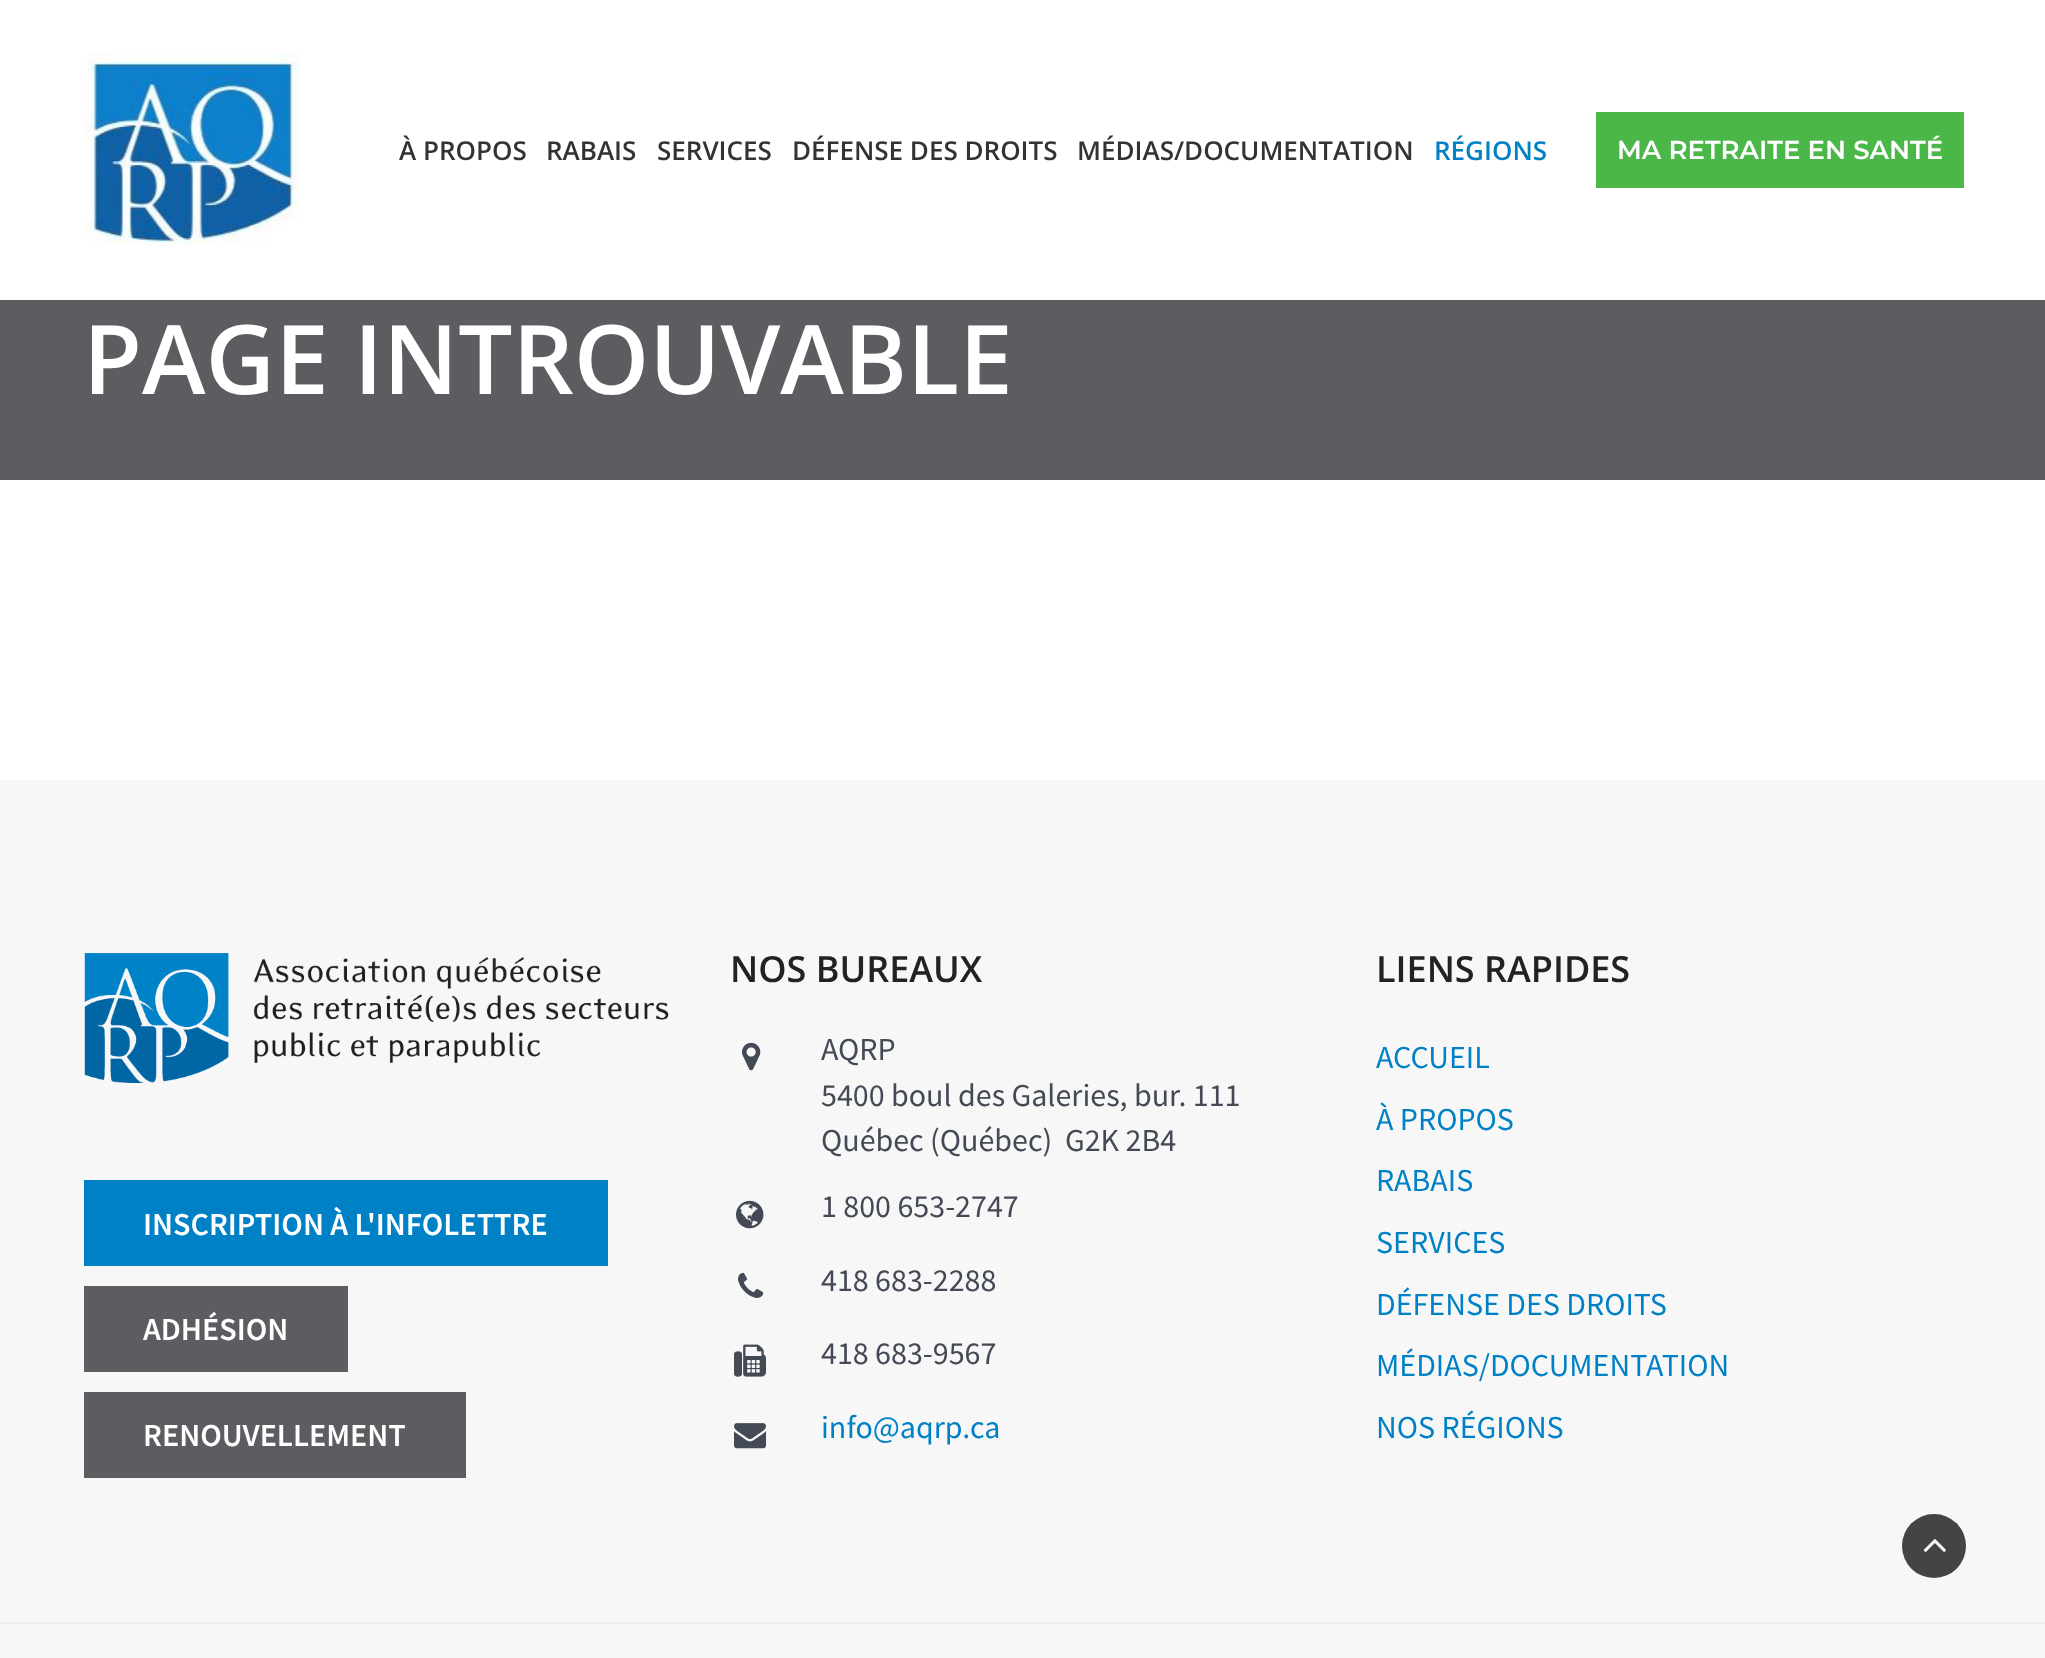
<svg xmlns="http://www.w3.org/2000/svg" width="2045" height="1658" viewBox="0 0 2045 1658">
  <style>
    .t1 { font: 600 26px Open Sans; fill: #333; }
    .t2 { font: 600 26px Open Sans; fill: #0081c6; }
    .t3 { font: 600 26px Montserrat; fill: #fff; }
    .t4 { font: 600 96px Open Sans; fill: #fff; }
    .t5 { font: 600 32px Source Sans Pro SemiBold; fill: #fff; }
    .t6 { font: 600 36px Open Sans; fill: #222; }
    .t7 { font: 32px Source Sans Pro; fill: #434955; }
    .t8 { font: 32px Source Sans Pro; fill: #0081c6; }
  </style>
  <rect width="100%" height="100%" fill="#fff"/>
  <image x="86" y="53" width="215" height="194" href="images/1.png"/>
  <text x="399" y="160" class="t1">À PROPOS</text>
  <text x="546" y="160" class="t1">RABAIS</text>
  <text x="657" y="160" class="t1">SERVICES</text>
  <text x="792" y="160" class="t1">DÉFENSE DES DROITS</text>
  <text x="1077" y="160" class="t1">MÉDIAS/DOCUMENTATION</text>
  <text x="1434" y="160" class="t2">RÉGIONS</text>
  <rect x="1596" y="112" width="368" height="76" fill="#4bb748"/>
  <text x="1617" y="159" class="t3">MA RETRAITE EN SANTÉ</text>
  <rect x="0" y="300" width="2045" height="180" fill="#5c5d61"/>
  <text x="83" y="394" class="t4">PAGE INTROUVABLE</text>
  <rect x="0" y="780" width="2045" height="842" fill="#f7f7f7"/>
  <image x="84" y="953" width="585" height="130" href="images/2.png"/>
  <rect x="84" y="1180" width="524" height="86" fill="#0081c6"/>
  <text x="143" y="1235" class="t5">INSCRIPTION À L'INFOLETTRE</text>
  <rect x="84" y="1286" width="264" height="86" fill="#5c5d61"/>
  <text x="143" y="1340" class="t5">ADHÉSION</text>
  <rect x="84" y="1392" width="382" height="86" fill="#5c5d61"/>
  <text x="143" y="1446" class="t5">RENOUVELLEMENT</text>
  <text x="730" y="982" class="t6">NOS BUREAUX</text>
  <image x="742" y="1042" width="19" height="29" href="images/3.png"/>
  <text x="821" y="1060" class="t7">AQRP</text>
  <text x="821" y="1106" class="t7">5400 boul des Galeries, bur. 111</text>
  <text x="821" y="1151" class="t7" xml:space="preserve">Québec (Québec)  G2K 2B4</text>
  <image x="736" y="1200" width="28" height="29" href="images/4.png"/>
  <text x="821" y="1217" class="t7">1 800 653-2747</text>
  <image x="738" y="1272" width="26" height="26" href="images/5.png"/>
  <text x="821" y="1291" class="t7">418 683-2288</text>
  <image x="734" y="1344" width="32" height="33" href="images/6.png"/>
  <text x="821" y="1364" class="t7">418 683-9567</text>
  <image x="734" y="1423" width="32" height="26" href="images/7.png"/>
  <text x="821" y="1438" class="t8">info@aqrp.ca</text>
  <text x="1376" y="982" class="t6">LIENS RAPIDES</text>
  <text x="1376" y="1068" class="t8">ACCUEIL</text>
  <text x="1376" y="1130" class="t8">À PROPOS</text>
  <text x="1376" y="1191" class="t8">RABAIS</text>
  <text x="1376" y="1253" class="t8">SERVICES</text>
  <text x="1376" y="1315" class="t8">DÉFENSE DES DROITS</text>
  <text x="1376" y="1376" class="t8">MÉDIAS/DOCUMENTATION</text>
  <text x="1376" y="1438" class="t8">NOS RÉGIONS</text>
  <rect x="0" y="1624" width="2045" height="34" fill="#f7f7f7"/>
  <rect x="0" y="1622" width="2045" height="2" fill="#eee"/>
  <circle cx="1934" cy="1546" r="32" fill="#444"/>
  <image x="1923" y="1539" width="23" height="13" href="images/8.png"/>
</svg>
